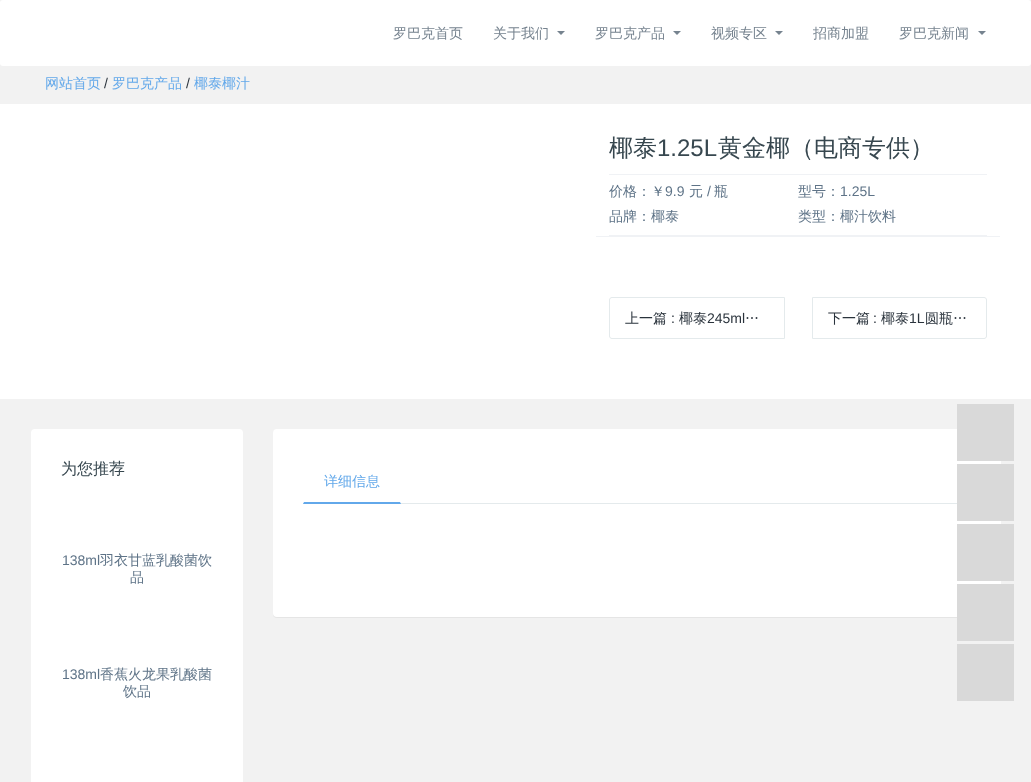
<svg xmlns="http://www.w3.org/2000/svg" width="1031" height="782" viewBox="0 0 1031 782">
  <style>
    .t1 { font: 500 14px WenQuanYi Zen Hei; fill: #76838f; }
    .t2 { font: 500 14px WenQuanYi Zen Hei; fill: #62a8ea; }
    .t3 { font: 14px Liberation Sans; fill: #2a333c; }
    .t4 { font: 500 24px WenQuanYi Zen Hei; fill: #37474f; }
    .t5 { font: 24px Liberation Sans; fill: #37474f; }
    .t6 { font: 500 14px WenQuanYi Zen Hei; fill: #5e7387; }
    .t7 { font: 14px Liberation Sans; fill: #5e7387; }
    .t8 { font: 500 14px WenQuanYi Zen Hei; fill: #2a333c; }
    .t9 { font: 500 16px WenQuanYi Zen Hei; fill: #37474f; }
  </style>
  <rect width="100%" height="100%" fill="#f2f2f2"/>
  <rect x="0" y="0" width="1031" height="66" rx="3" fill="#fff"/>
  <text x="393" y="38" class="t1">罗巴克首页</text>
  <text x="493" y="38" class="t1">关于我们</text>
  <path d="M557 31H565L561 35Z" fill="#76838f"/>
  <text x="595" y="38" class="t1">罗巴克产品</text>
  <path d="M673 31H681L677 35Z" fill="#76838f"/>
  <text x="711" y="38" class="t1">视频专区</text>
  <path d="M775 31H783L779 35Z" fill="#76838f"/>
  <text x="813" y="38" class="t1">招商加盟</text>
  <text x="899" y="38" class="t1">罗巴克新闻</text>
  <path d="M978 31H986L982 35Z" fill="#76838f"/>
  <text x="45" y="88" class="t2">网站首页</text>
  <text x="104" y="88" class="t3">/</text>
  <text x="112" y="88" class="t2">罗巴克产品</text>
  <text x="186" y="88" class="t3">/</text>
  <text x="194" y="88" class="t2">椰泰椰汁</text>
  <rect x="0" y="104" width="1031" height="295" fill="#fff"/>
  <text x="609" y="156" class="t4">椰泰</text>
  <text x="657" y="156" class="t5">1.25L</text>
  <text x="718" y="156" class="t4">黄金椰（电商专供）</text>
  <rect x="609" y="174" width="378" height="1" fill="#f0f2f5"/>
  <rect x="609" y="235" width="378" height="1" fill="#f0f2f5"/>
  <text x="609" y="196" class="t6">价格：￥</text>
  <text x="665" y="196" class="t7">9.9</text>
  <text x="689" y="196" class="t6">元</text>
  <text x="707" y="196" class="t7">/</text>
  <text x="714" y="196" class="t6">瓶</text>
  <text x="798" y="196" class="t6">型号：</text>
  <text x="840" y="196" class="t7">1.25L</text>
  <text x="609" y="221" class="t6">品牌：椰泰</text>
  <text x="798" y="221" class="t6">类型：椰汁饮料</text>
  <rect x="596" y="236" width="404" height="1" fill="#f0f2f5"/>
  <path d="M612 297.5H784.5V338.5H612C610.5 338.5 609.5 337.5 609.5 336V300C609.5 298.5 610.5 297.5 612 297.5Z" fill="none" stroke="#e4eaec"/>
  <text x="625" y="323" class="t8">上一篇</text>
  <text x="671" y="323" class="t3">:</text>
  <text x="679" y="323" class="t8">椰泰</text>
  <text x="707" y="323" class="t3">245ml</text>
  <text x="745" y="323" class="t8">…</text>
  <path d="M812.5 297.5H984C985.5 297.5 986.5 298.5 986.5 300V336C986.5 337.5 985.5 338.5 984 338.5H812.5Z" fill="none" stroke="#e4eaec"/>
  <text x="828" y="323" class="t8">下一篇</text>
  <text x="873" y="323" class="t3">:</text>
  <text x="881" y="323" class="t8">椰泰</text>
  <text x="909" y="323" class="t3">1L</text>
  <text x="925" y="323" class="t8">圆瓶…</text>
  <rect x="31" y="429" width="212" height="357" rx="4" fill="#fff"/>
  <text x="61" y="474" class="t9">为您推荐</text>
  <text x="62" y="565" class="t7">138ml</text>
  <text x="100" y="565" class="t6">羽衣甘蓝乳酸菌饮</text>
  <text x="130" y="582" class="t6">品</text>
  <text x="62" y="679" class="t7">138ml</text>
  <text x="100" y="679" class="t6">香蕉火龙果乳酸菌</text>
  <text x="123" y="696" class="t6">饮品</text>
  <rect x="273" y="430" width="728" height="188" rx="4" fill="#0000000d" filter="blur(0.5px)"/>
  <rect x="273" y="429" width="728" height="188" rx="4" fill="#fff"/>
  <rect x="303" y="503" width="654" height="1" fill="#e4eaec"/>
  <path d="M401 504L400 502H304L303 504Z" fill="#62a8ea"/>
  <text x="324" y="486" class="t2">详细信息</text>
  <rect x="957" y="404" width="57" height="57" fill="#d9d9d9"/>
  <rect x="957" y="464" width="57" height="57" fill="#d9d9d9"/>
  <rect x="957" y="524" width="57" height="57" fill="#d9d9d9"/>
  <rect x="957" y="584" width="57" height="57" fill="#d9d9d9"/>
  <rect x="957" y="644" width="57" height="57" fill="#d9d9d9"/>
</svg>
